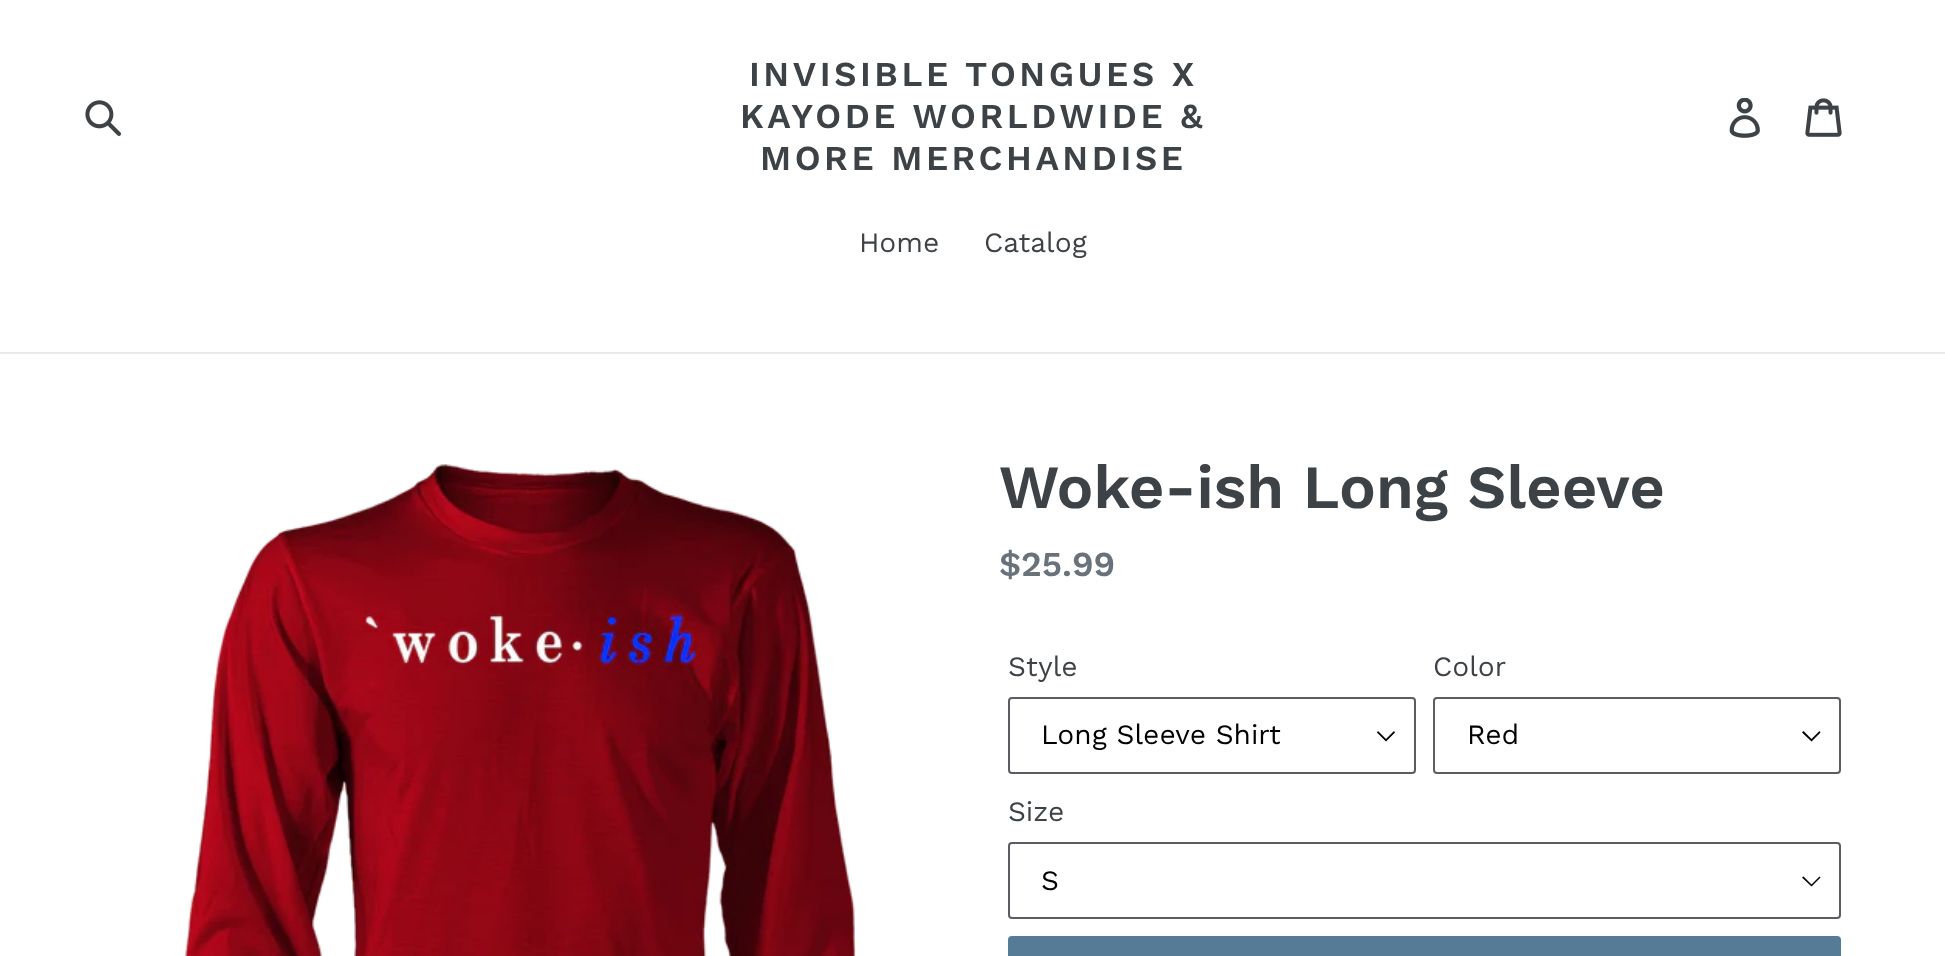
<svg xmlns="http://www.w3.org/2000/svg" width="1945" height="956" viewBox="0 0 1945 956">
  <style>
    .t1 { font: 600 35px Work Sans; letter-spacing: 3.5px; fill: #3d4246; }
    .t2 { font: 28px Work Sans; fill: #3d4246; }
    .t3 { font: 600 61.25px Work Sans; fill: #3d4246; }
    .t4 { font: 600 35px Work Sans; fill: #69727b; }
    .t5 { font: 28px Work Sans; fill: #000; }
  </style>
  <rect width="100%" height="100%" fill="#fff"/>
  <image x="85" y="100" width="36" height="36" href="images/1.png"/>
  <text x="749" y="86" class="t1">INVISIBLE TONGUES X</text>
  <text x="740" y="128" class="t1">KAYODE WORLDWIDE &amp;</text>
  <text x="760" y="170" class="t1">MORE MERCHANDISE</text>
  <image x="1729" y="98" width="31" height="40" href="images/2.png"/>
  <image x="1805" y="98" width="37" height="39" href="images/3.png"/>
  <rect x="0" y="352" width="1945" height="2" fill="#e8e9eb"/>
  <text x="859" y="252" class="t2">Home</text>
  <text x="984" y="252" class="t2">Catalog</text>
  <image x="185" y="464" width="671" height="492" href="images/4.png"/>
  <text x="999" y="508" class="t3">Woke-ish Long Sleeve</text>
  <text x="999" y="576" class="t4">$25.99</text>
  <text x="1008" y="676" class="t2">Style</text>
  <path d="M1386 741.5L1377 732.5L1378 731L1386 739L1394 731L1395 732.5Z" fill="#000"/>
  <rect x="1009" y="698" width="406" height="75" rx="3" fill="none" stroke="#5a5e62" stroke-width="2"/>
  <text x="1041" y="744" class="t5">Long Sleeve Shirt</text>
  <text x="1433" y="676" class="t2">Color</text>
  <path d="M1811.5 741.5L1802 732.5L1803.5 731L1811.5 739L1819.5 731L1820.5 732.5Z" fill="#000"/>
  <rect x="1434" y="698" width="406" height="75" rx="3" fill="none" stroke="#5a5e62" stroke-width="2"/>
  <text x="1467" y="744" class="t5">Red</text>
  <text x="1008" y="821" class="t2">Size</text>
  <path d="M1811.5 886.5L1802 877.5L1803.5 876.5L1811.5 884.5L1819.5 876.5L1820.5 877.5Z" fill="#000"/>
  <rect x="1009" y="843" width="831" height="75" rx="3" fill="none" stroke="#5a5e62" stroke-width="2"/>
  <text x="1041" y="890" class="t5">S</text>
  <rect x="1008" y="936" width="833" height="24" rx="4" fill="#557b97"/>
</svg>
